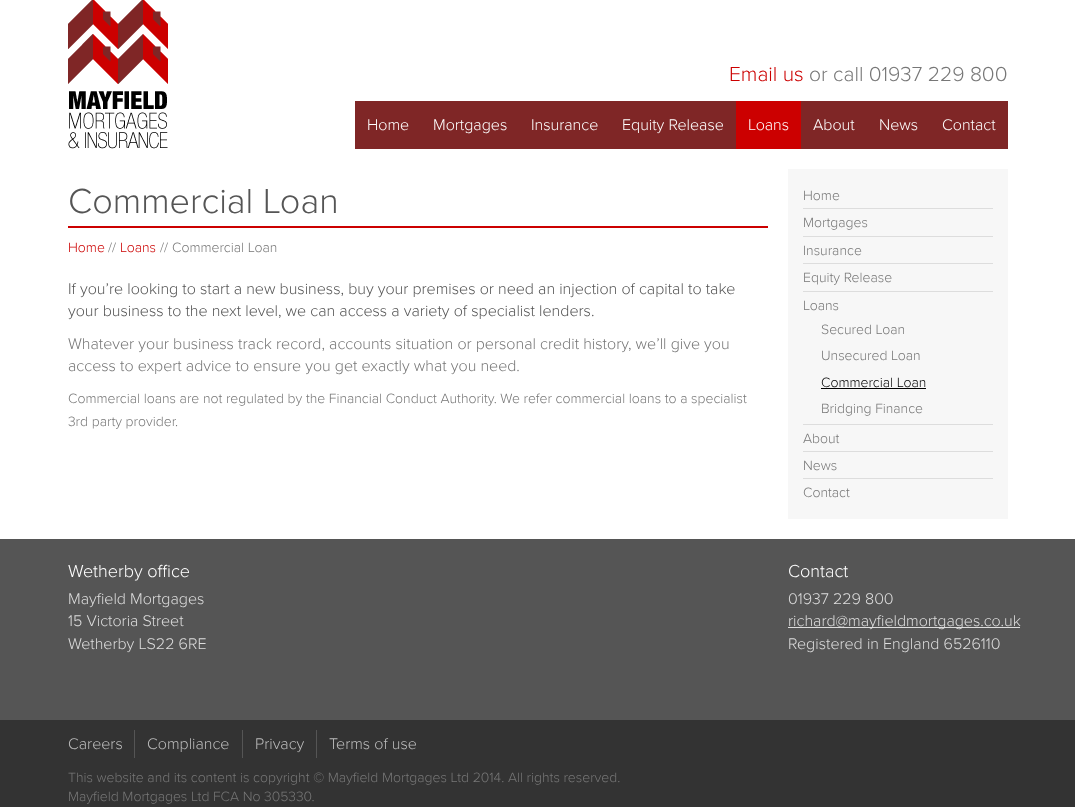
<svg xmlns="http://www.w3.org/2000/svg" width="1075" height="807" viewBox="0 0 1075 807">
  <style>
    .t1 { font: 300 21px Proxima Nova; fill: #c00; }
    .t2 { font: 300 21px Proxima Nova; fill: #777; }
    .t3 { font: 300 16px Proxima Nova; fill: #fff; }
    .t4 { font: 300 36px Proxima Nova; fill: #555; }
    .t5 { font: 300 14px Proxima Nova; fill: #c00; }
    .t6 { font: 300 14px Proxima Nova; fill: #777; }
    .t7 { font: 300 16px Proxima Nova; fill: #555; }
    .t8 { font: 300 16px Proxima Nova; fill: #777; }
    .t9 { font: 300 14px Proxima Nova; fill: #000; }
    .t10 { font: 300 18px Proxima Nova; fill: #fff; }
    .t11 { font: 300 16px Proxima Nova; fill: #ddd; }
    .t12 { font: 300 16px Proxima Nova; fill: #bbb; }
  </style>
  <rect width="100%" height="100%" fill="#333"/>
  <rect x="0" y="0" width="1075" height="539" fill="#fff"/>
  <image x="68" y="0" width="100" height="149" href="images/1.png"/>
  <text x="729" y="81" class="t1">Email us</text>
  <text x="809" y="81" class="t2">or call 01937 229 800</text>
  <rect x="355" y="101" width="381" height="48" fill="#7f2626"/>
  <text x="367" y="130" class="t3">Home</text>
  <text x="433" y="130" class="t3">Mortgages</text>
  <text x="531" y="130" class="t3">Insurance</text>
  <text x="622" y="130" class="t3">Equity Release</text>
  <rect x="736" y="101" width="65" height="48" fill="#c00"/>
  <text x="748" y="130" class="t3">Loans</text>
  <rect x="801" y="101" width="207" height="48" fill="#7f2626"/>
  <text x="813" y="130" class="t3">About</text>
  <text x="879" y="130" class="t3">News</text>
  <text x="942" y="130" class="t3">Contact</text>
  <rect x="68" y="226" width="700" height="2" fill="#c00"/>
  <text x="68" y="213" class="t4">Commercial Loan</text>
  <text x="68" y="252" class="t5">Home</text>
  <text x="108" y="252" class="t6">//</text>
  <text x="120" y="252" class="t5">Loans</text>
  <text x="160" y="252" class="t6">//</text>
  <text x="172" y="252" class="t6">Commercial Loan</text>
  <text x="68" y="294" class="t7">If you’re looking to start a new business, buy your premises or need an injection of capital to take</text>
  <text x="68" y="316" class="t7">your business to the next level, we can access a variety of specialist lenders.</text>
  <text x="68" y="349" class="t8">Whatever your business track record, accounts situation or personal credit history, we’ll give you</text>
  <text x="68" y="371" class="t8">access to expert advice to ensure you get exactly what you need.</text>
  <text x="68" y="403" class="t6">Commercial loans are not regulated by the Financial Conduct Authority. We refer commercial loans to a specialist</text>
  <text x="68" y="426" class="t6">3rd party provider.</text>
  <rect x="788" y="169" width="220" height="350" fill="#f7f7f7"/>
  <rect x="803" y="208" width="190" height="1" fill="#ddd"/>
  <text x="803" y="200" class="t6">Home</text>
  <rect x="803" y="236" width="190" height="1" fill="#ddd"/>
  <text x="803" y="227" class="t6">Mortgages</text>
  <rect x="803" y="263" width="190" height="1" fill="#ddd"/>
  <text x="803" y="255" class="t6">Insurance</text>
  <rect x="803" y="291" width="190" height="1" fill="#ddd"/>
  <text x="803" y="282" class="t6">Equity Release</text>
  <rect x="803" y="424" width="190" height="1" fill="#ddd"/>
  <text x="803" y="310" class="t6">Loans</text>
  <text x="821" y="334" class="t6">Secured Loan</text>
  <text x="821" y="360" class="t6">Unsecured Loan</text>
  <text x="821" y="387" class="t9">Commercial Loan</text>
  <rect x="821" y="388" width="105" height="1" fill="#000"/>
  <text x="821" y="413" class="t6">Bridging Finance</text>
  <rect x="803" y="451" width="190" height="1" fill="#ddd"/>
  <text x="803" y="443" class="t6">About</text>
  <rect x="803" y="478" width="190" height="1" fill="#ddd"/>
  <text x="803" y="470" class="t6">News</text>
  <text x="803" y="497" class="t6">Contact</text>
  <rect x="0" y="539" width="1075" height="181" fill="#555"/>
  <text x="68" y="577" class="t10">Wetherby office</text>
  <text x="68" y="604" class="t11">Mayfield Mortgages</text>
  <text x="68" y="626" class="t11">15 Victoria Street</text>
  <text x="68" y="649" class="t11">Wetherby LS22 6RE</text>
  <text x="788" y="577" class="t10">Contact</text>
  <text x="788" y="604" class="t11">01937 229 800</text>
  <rect x="788" y="627" width="232" height="1" fill="#ddd"/>
  <text x="788" y="626" class="t11">richard@mayfieldmortgages.co.uk</text>
  <text x="788" y="649" class="t11">Registered in England 6526110</text>
  <rect x="134" y="730" width="1" height="28" fill="#555"/>
  <text x="68" y="749" class="t12">Careers</text>
  <rect x="242" y="730" width="1" height="28" fill="#555"/>
  <text x="147" y="749" class="t12">Compliance</text>
  <rect x="316" y="730" width="1" height="28" fill="#555"/>
  <text x="255" y="749" class="t12">Privacy</text>
  <text x="329" y="749" class="t12">Terms of use</text>
  <text x="68" y="782" class="t6">This website and its content is copyright © Mayfield Mortgages Ltd 2014. All rights reserved.</text>
  <text x="68" y="801" class="t6">Mayfield Mortgages Ltd FCA No 305330.</text>
</svg>
